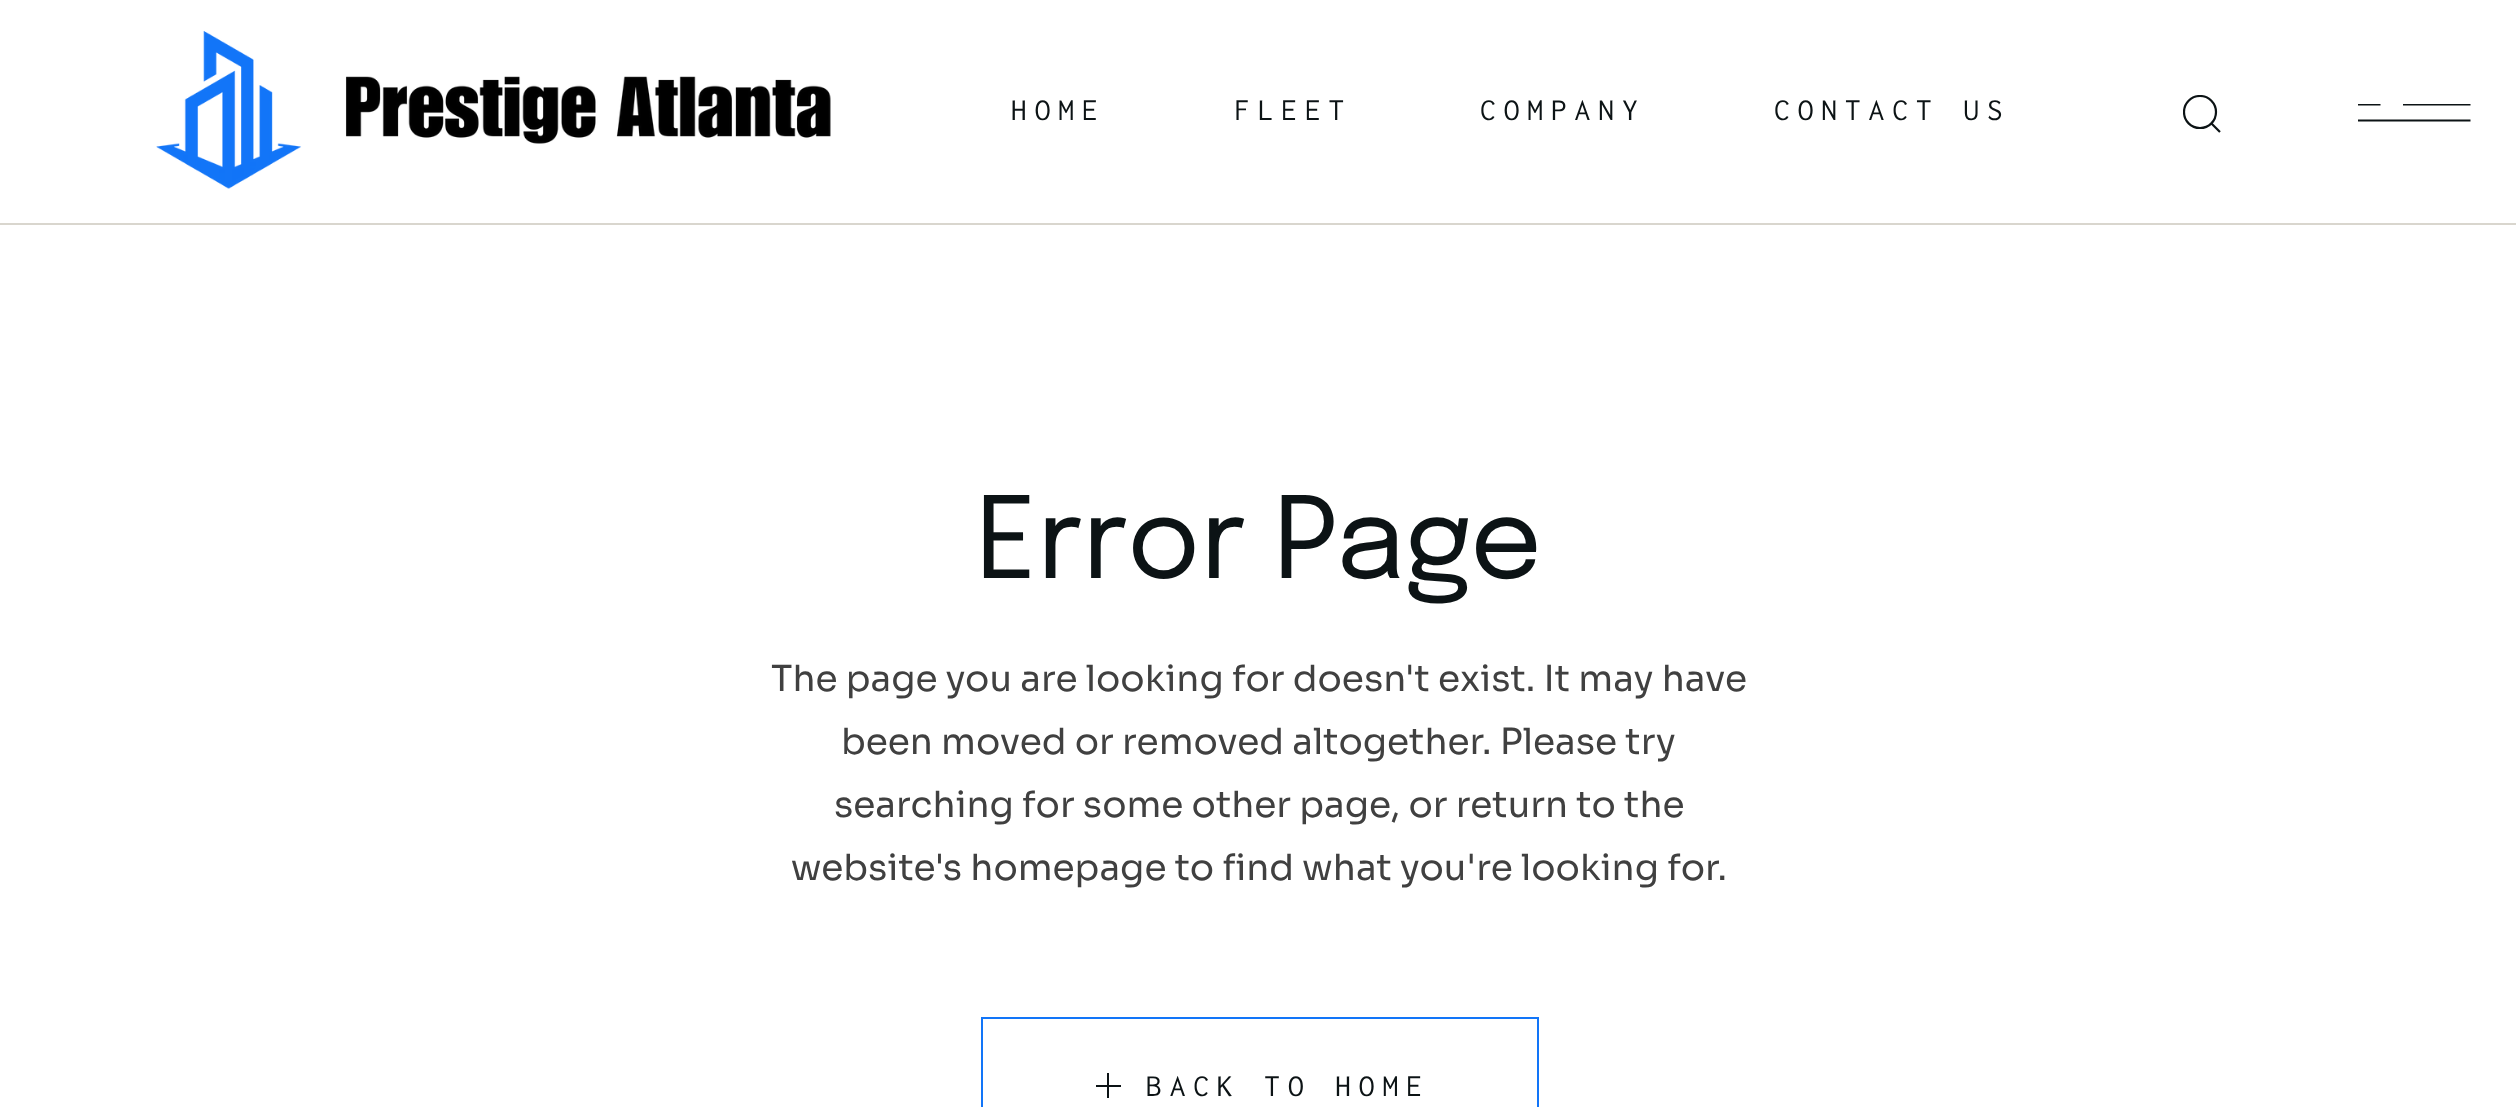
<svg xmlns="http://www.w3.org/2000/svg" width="2516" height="1107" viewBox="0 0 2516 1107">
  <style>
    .t1 { font: 31.5px Inconsolata; letter-spacing: 7.9px; fill: #0c1315; }
    .t2 { font: 112.5px Epilogue; fill: #0c1315; }
    .t3 { font: 36px Sora; fill: #404040; }
  </style>
  <defs>
    <clipPath id="clip1"><rect x="2183" y="95" width="40" height="38"/></clipPath>
    <clipPath id="clip2"><rect x="2358" y="104" width="113" height="18"/></clipPath>
  </defs>
  <rect width="100%" height="100%" fill="#fff"/>
  <rect x="0" y="223" width="2516" height="2" fill="#d9d6ce"/>
  <image x="156" y="31" width="675" height="158" href="images/1.png"/>
  <text x="1011" y="120" class="t1">HOME</text>
  <text x="1234" y="120" class="t1">FLEET</text>
  <text x="1480" y="120" class="t1">COMPANY</text>
  <text x="1774" y="120" class="t1">CONTACT US</text>
  <g clip-path="url(#clip1)">
    <path d="M2200 96C2209 96 2216 103.5 2216 112C2216 121 2209 128 2200 128C2191 128 2184 121 2184 112C2184 103.5 2191 96 2200 96Z" fill="none" stroke="#0c1315" stroke-width="2.2"/>
  </g>
  <path d="M2220 132L2211.5 123.5" fill="none" stroke="#0c1315" stroke-width="2.2"/>
  <g clip-path="url(#clip2)">
    <path d="M2358 104.5H2380.5M2403 104.5H2470.5" fill="none" stroke="#0c1315" stroke-width="2.2"/>
  </g>
  <path d="M2470.5 120.5H2358" fill="none" stroke="#0c1315" stroke-width="2.2"/>
  <text x="976" y="578" class="t2">Error Page</text>
  <text x="771" y="691" class="t3">The page you are looking for doesn't exist. It may have</text>
  <text x="841" y="754" class="t3">been moved or removed altogether. Please try</text>
  <text x="834" y="817" class="t3">searching for some other page, or return to the</text>
  <text x="791" y="880" class="t3">website's homepage to find what you're looking for.</text>
  <rect x="982" y="1018" width="556" height="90" fill="none" stroke="#1275f8" stroke-width="2"/>
  <rect x="1107" y="1073" width="2" height="25" fill="#0c1315"/>
  <text x="1146" y="1096" class="t1">BACK TO HOME</text>
  <rect x="1096" y="1085" width="25" height="2" fill="#0c1315"/>
</svg>
